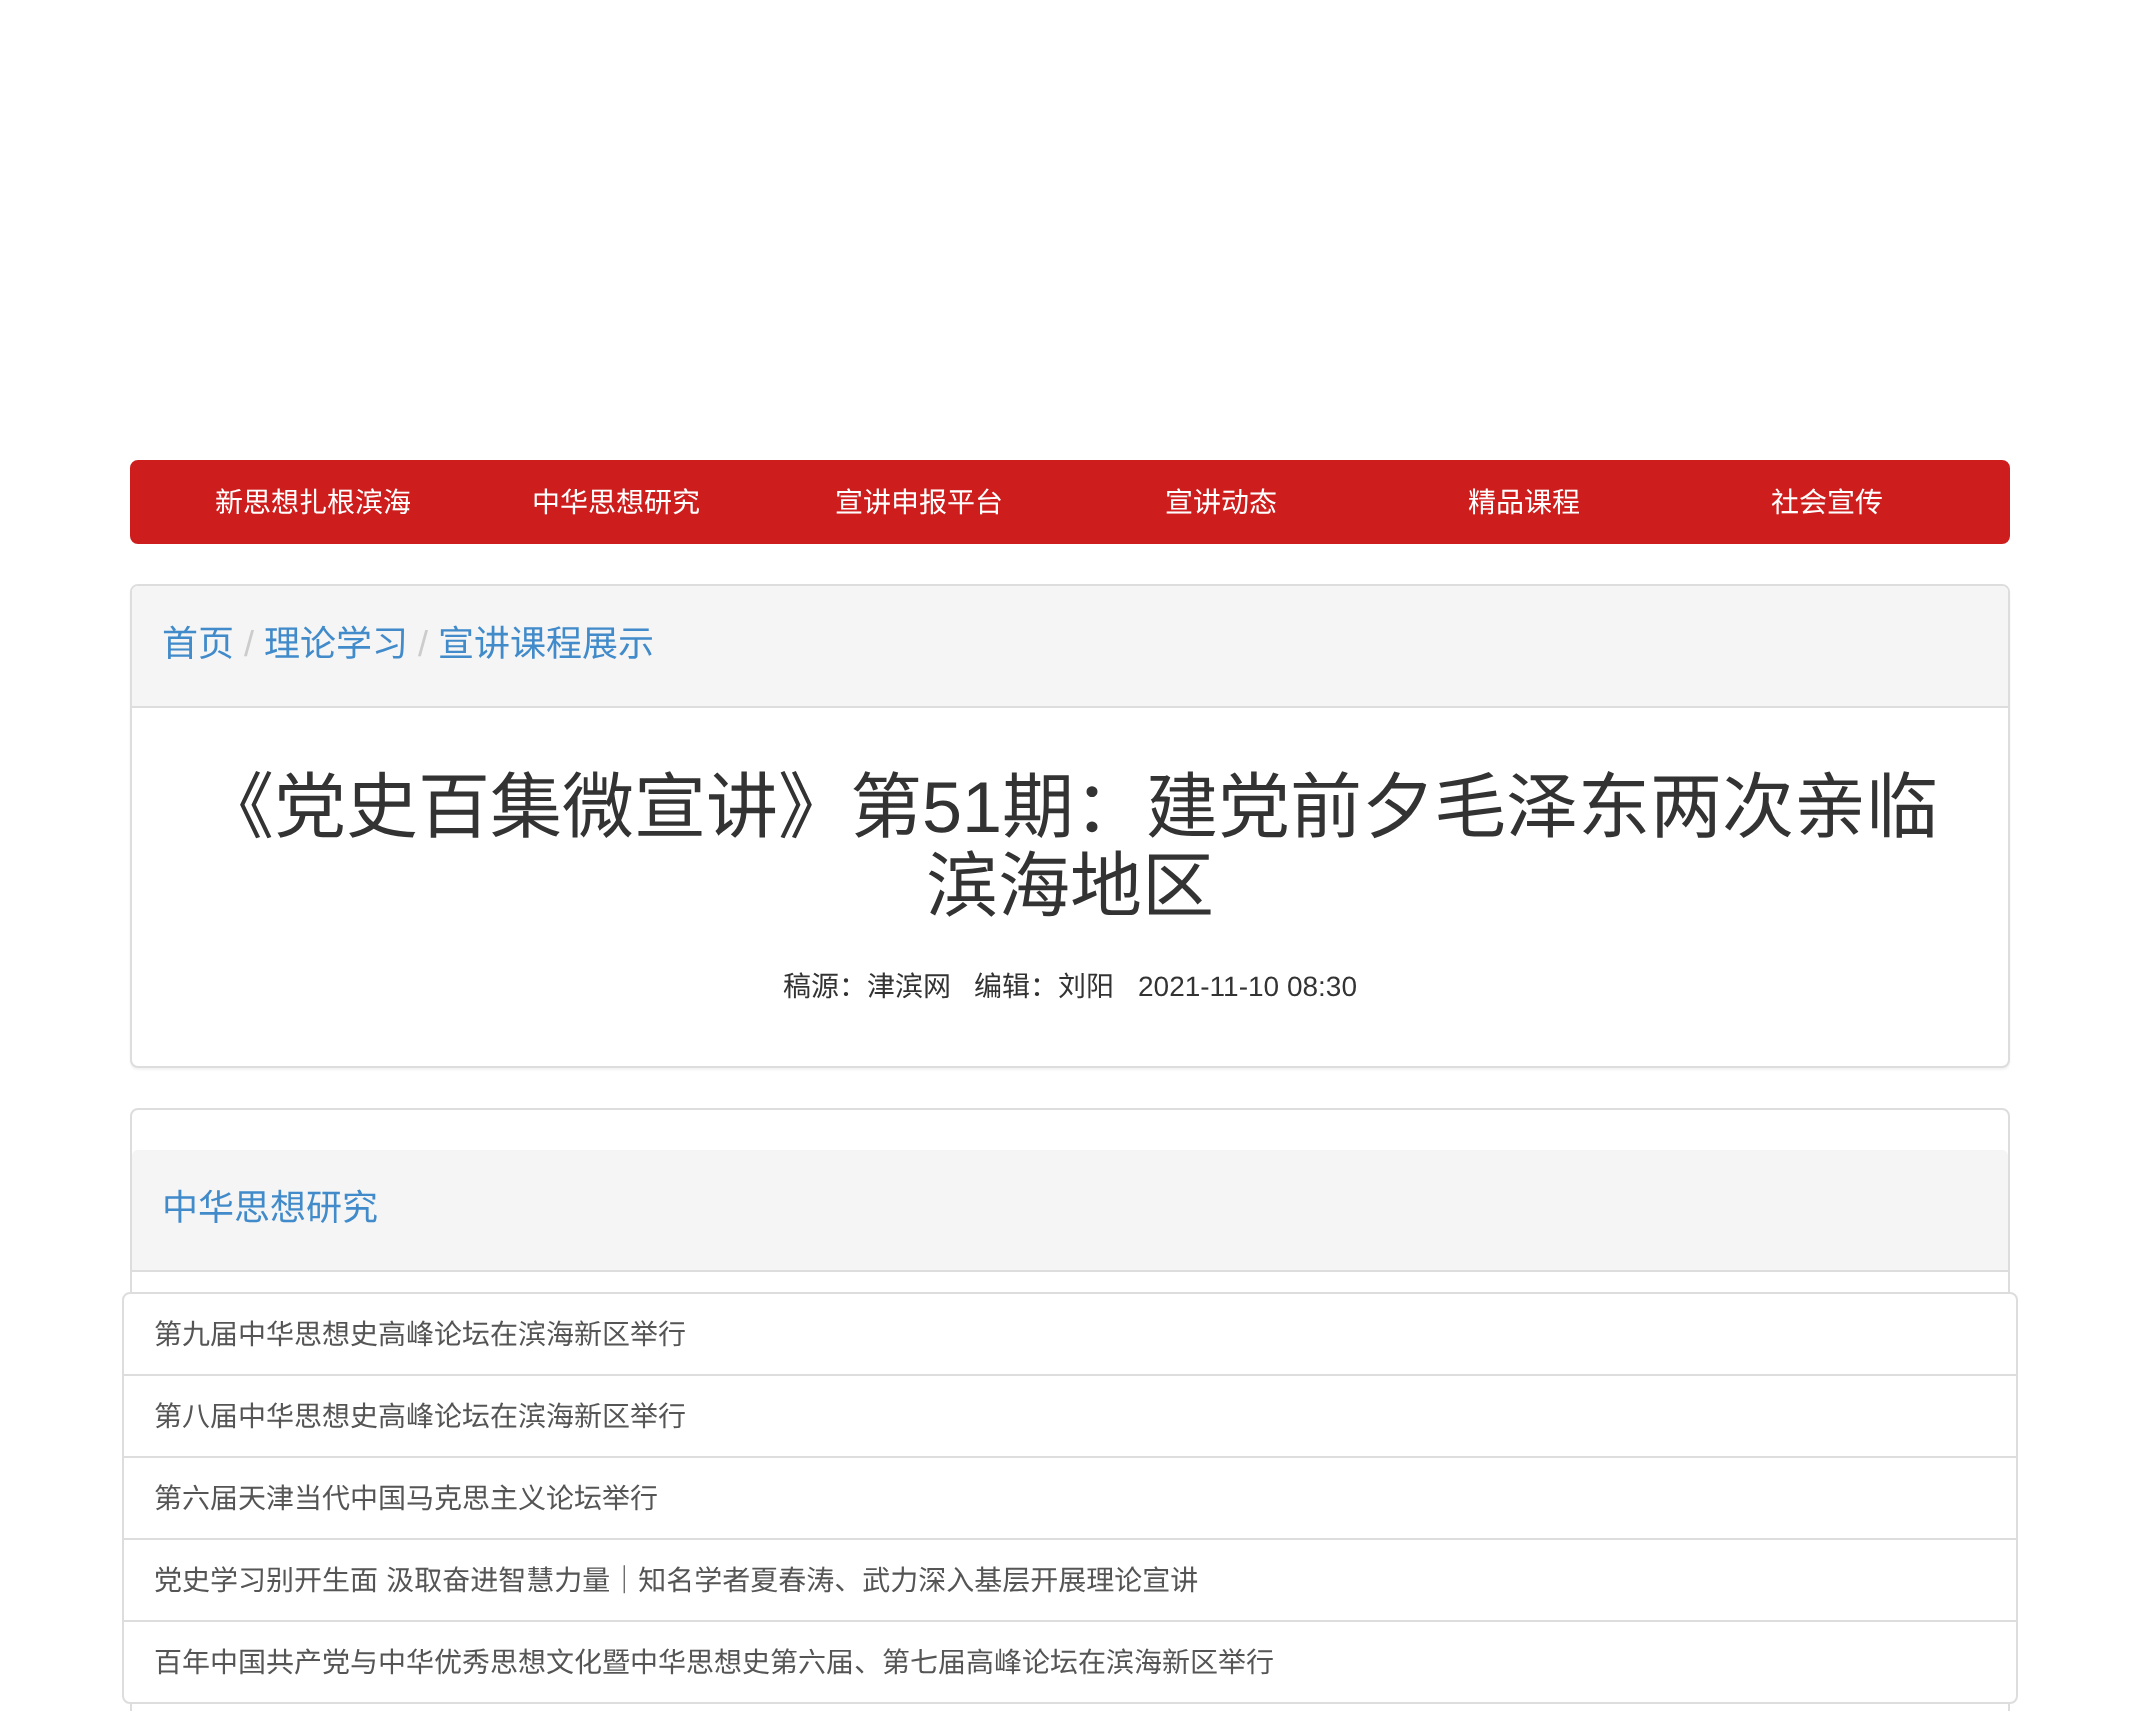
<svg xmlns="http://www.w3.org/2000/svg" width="2139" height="1711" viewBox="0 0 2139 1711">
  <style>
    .t1 { font: 28px Noto Sans CJK SC; fill: #fff; }
    .t2 { font: 36px Noto Sans CJK SC; fill: #428bca; }
    .t3 { font: 36px Liberation Sans; fill: #ccc; }
    .t4 { font: 72px Noto Sans CJK SC; fill: #333; }
    .t5 { font: 72px Liberation Sans; fill: #333; }
    .t6 { font: 28px Noto Sans CJK SC; fill: #333; }
    .t7 { font: 28px Liberation Sans; fill: #333; }
    .t8 { font: 28px Noto Sans CJK SC; fill: #555; }
  </style>
  <rect width="100%" height="100%" fill="#fff"/>
  <rect x="131" y="461" width="1878" height="82" rx="7" fill="#ce1d1d" stroke="#ce1d1d" stroke-width="2"/>
  <text x="215" y="512" class="t1">新思想扎根滨海</text>
  <text x="532" y="512" class="t1">中华思想研究</text>
  <text x="835" y="512" class="t1">宣讲申报平台</text>
  <text x="1165" y="512" class="t1">宣讲动态</text>
  <text x="1468" y="512" class="t1">精品课程</text>
  <text x="1771" y="512" class="t1">社会宣传</text>
  <rect x="130" y="586" width="1880" height="484" rx="8" fill="#0000000d" filter="blur(1px)"/>
  <rect x="131" y="585" width="1878" height="482" rx="7" fill="#fff" stroke="#ddd" stroke-width="2"/>
  <path d="M138 586H2002C2005.5 586 2008 588.5 2008 592V708H132V592C132 588.5 134.5 586 138 586Z" fill="#f5f5f5"/>
  <rect x="132" y="706" width="1876" height="2" fill="#ddd"/>
  <text x="162" y="656" class="t2">首页</text>
  <text x="244" y="656" class="t3">/</text>
  <text x="264" y="656" class="t2">理论学习</text>
  <text x="418" y="656" class="t3">/</text>
  <text x="438" y="656" class="t2">宣讲课程展示</text>
  <text x="202" y="832" class="t4">《党史百集微宣讲》第</text>
  <text x="922" y="832" class="t5">51</text>
  <text x="1002" y="832" class="t4">期：建党前夕毛泽东两次亲临</text>
  <text x="926" y="911" class="t4">滨海地区</text>
  <text x="783" y="996" class="t6">稿源：津滨网</text>
  <text x="974" y="996" class="t6">编辑：刘阳</text>
  <text x="1138" y="996" class="t7">2021-11-10 08:30</text>
  <rect x="131" y="1109" width="1878" height="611" rx="7" fill="none" stroke="#ddd" stroke-width="2"/>
  <path d="M138 1150H2002C2005.5 1150 2008 1152.5 2008 1156V1272H132V1156C132 1152.5 134.5 1150 138 1150Z" fill="#f5f5f5"/>
  <rect x="132" y="1270" width="1876" height="2" fill="#ddd"/>
  <text x="162" y="1220" class="t2">中华思想研究</text>
  <path d="M130 1293H2010C2014 1293 2017 1296 2017 1300V1375H123V1300C123 1296 126 1293 130 1293Z" fill="#fff" stroke="#ddd" stroke-width="2"/>
  <text x="154" y="1344" class="t8">第九届中华思想史高峰论坛在滨海新区举行</text>
  <rect x="130" y="1376" width="1880" height="80" fill="#fff"/>
  <rect x="123" y="1375" width="1894" height="82" fill="none" stroke="#ddd" stroke-width="2"/>
  <text x="154" y="1426" class="t8">第八届中华思想史高峰论坛在滨海新区举行</text>
  <rect x="130" y="1458" width="1880" height="80" fill="#fff"/>
  <rect x="123" y="1457" width="1894" height="82" fill="none" stroke="#ddd" stroke-width="2"/>
  <text x="154" y="1508" class="t8">第六届天津当代中国马克思主义论坛举行</text>
  <rect x="130" y="1540" width="1880" height="80" fill="#fff"/>
  <rect x="123" y="1539" width="1894" height="82" fill="none" stroke="#ddd" stroke-width="2"/>
  <text x="154" y="1590" word-spacing="2" class="t8">党史学习别开生面 汲取奋进智慧力量｜知名学者夏春涛、武力深入基层开展理论宣讲</text>
  <path d="M123 1621H2017V1696C2017 1700 2014 1703 2010 1703H130C126 1703 123 1700 123 1696Z" fill="#fff" stroke="#ddd" stroke-width="2"/>
  <text x="154" y="1672" class="t8">百年中国共产党与中华优秀思想文化暨中华思想史第六届、第七届高峰论坛在滨海新区举行</text>
</svg>
